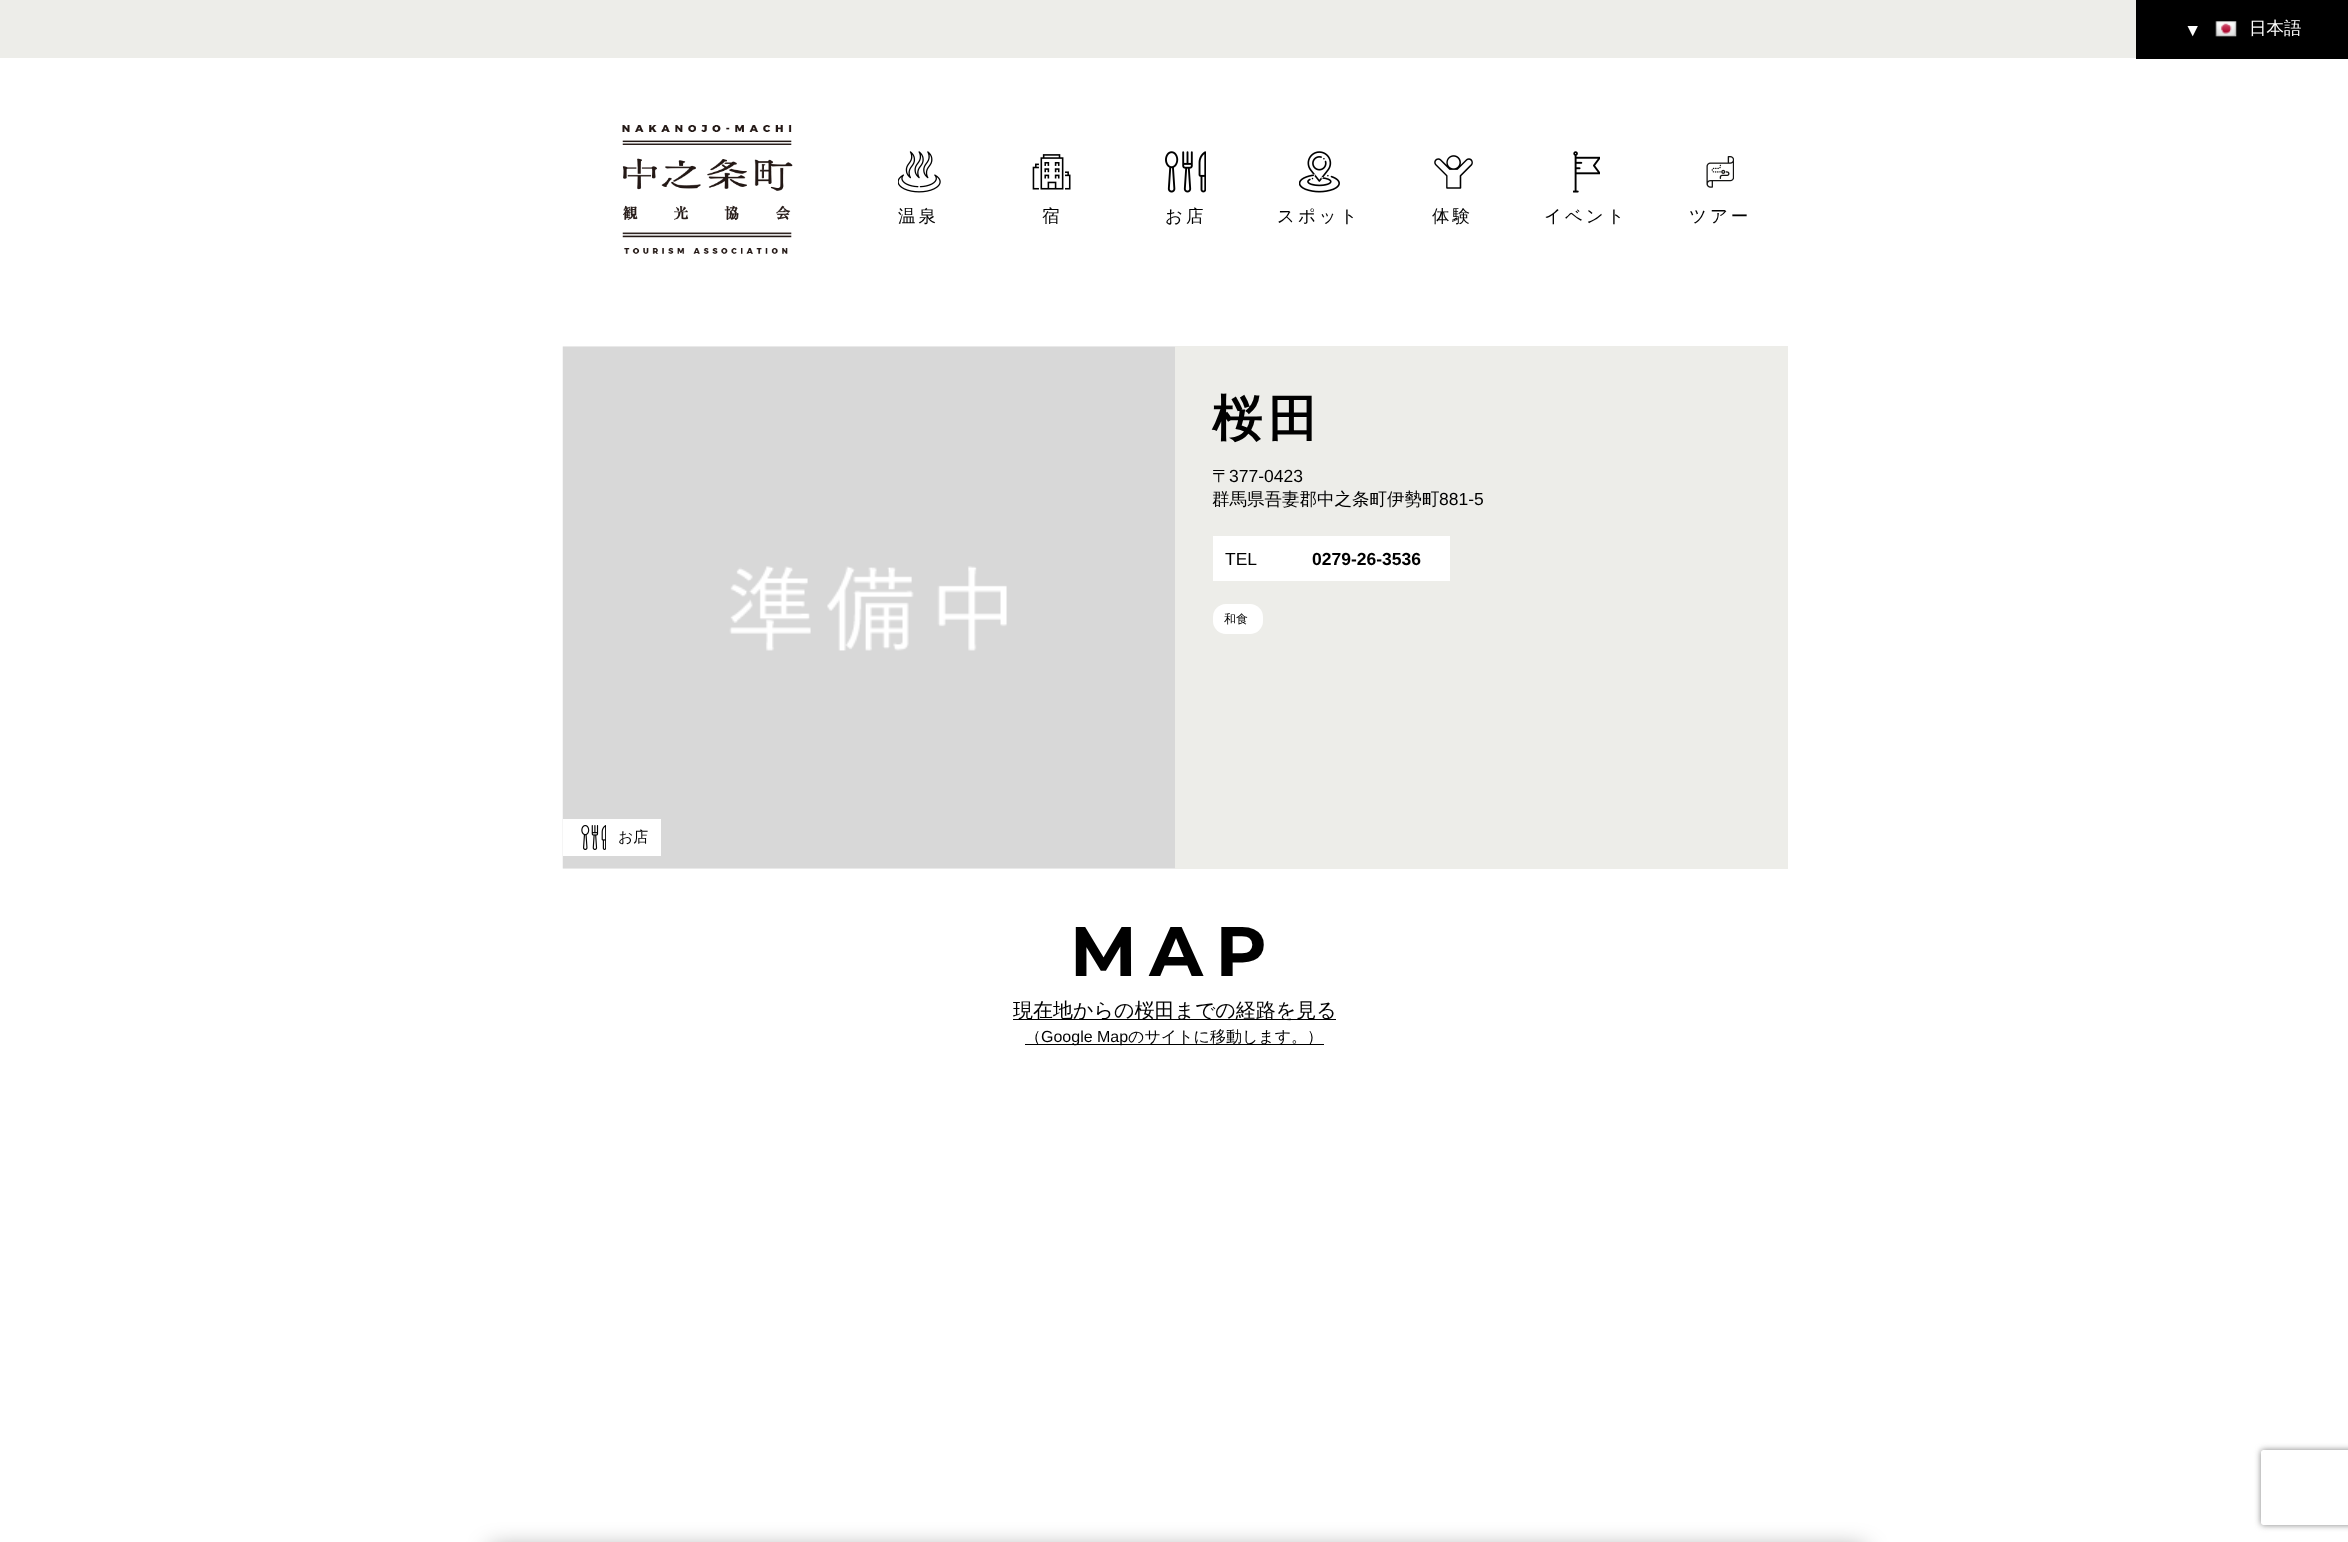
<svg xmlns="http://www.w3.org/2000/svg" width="2348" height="1542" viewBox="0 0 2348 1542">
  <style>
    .t1 { font: 17.5px Liberation Sans; fill: #fff; }
    .t2 { font: 500 17.5px WenQuanYi Zen Hei; fill: #fff; }
    .t3 { font: 500 17.5px WenQuanYi Zen Hei; letter-spacing: 3px; fill: #000; }
    .t4 { font: bold 50px WenQuanYi Zen Hei; letter-spacing: 6px; fill: #000; }
    .t5 { font: 500 17.5px WenQuanYi Zen Hei; fill: #000; }
    .t6 { font: 17.5px Liberation Sans; fill: #000; }
    .t7 { font: bold 17.5px Liberation Sans; fill: #000; }
    .t8 { font: 500 12px WenQuanYi Zen Hei; fill: #000; }
    .t9 { font: 500 15px WenQuanYi Zen Hei; fill: #000; }
    .t10 { font: bold 70px Montserrat; letter-spacing: 12.5px; fill: #000; }
    .t11 { font: 500 20px WenQuanYi Zen Hei; fill: #000; }
    .t12 { font: 500 16px WenQuanYi Zen Hei; fill: #000; }
    .t13 { font: 16px Liberation Sans; fill: #000; }
  </style>
  <defs>
    <clipPath id="clip1"><path d="M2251 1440H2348V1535H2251ZM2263.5 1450H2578.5C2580 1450 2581 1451 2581 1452.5V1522.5C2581 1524 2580 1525 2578.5 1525H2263.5C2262 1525 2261 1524 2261 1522.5V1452.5C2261 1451 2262 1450 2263.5 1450Z" clip-rule="evenodd"/></clipPath>
  </defs>
  <rect width="100%" height="100%" fill="#fff"/>
  <rect x="0" y="0" width="2136" height="58" fill="#edede9"/>
  <rect x="2136" y="0" width="212" height="59" fill="#000"/>
  <text x="2184" y="36" class="t1">▼</text>
  <image x="2215" y="21" width="22" height="16" href="images/1.png"/>
  <text x="2249" y="34" class="t2">日本語</text>
  <image x="622" y="125" width="171" height="129" href="images/2.png"/>
  <image x="898" y="151" width="43" height="42" href="images/3.png"/>
  <text x="898" y="222" class="t3">温泉</text>
  <image x="1032" y="154" width="39" height="36" href="images/4.png"/>
  <text x="1042" y="222" class="t3">宿</text>
  <image x="1165" y="151" width="41" height="42" href="images/5.png"/>
  <text x="1165" y="222" class="t3">お店</text>
  <image x="1299" y="151" width="41" height="42" href="images/6.png"/>
  <text x="1277" y="222" class="t3">スポット</text>
  <image x="1434" y="155" width="39" height="34" href="images/7.png"/>
  <text x="1432" y="222" class="t3">体験</text>
  <image x="1573" y="151" width="27" height="42" href="images/8.png"/>
  <text x="1544" y="222" class="t3">イベント</text>
  <image x="1706" y="156" width="28" height="32" href="images/9.png"/>
  <text x="1689" y="222" class="t3">ツアー</text>
  <rect x="1175" y="346" width="613" height="523" fill="#edede9"/>
  <text x="1212" y="436" class="t4">桜田</text>
  <text x="1212" y="482" class="t5">〒</text>
  <text x="1229" y="482" class="t6">377-0423</text>
  <text x="1212" y="505" class="t5">群馬県吾妻郡中之条町伊勢町</text>
  <text x="1439" y="505" class="t6">881-5</text>
  <rect x="1213" y="536" width="237" height="45" fill="#fff"/>
  <text x="1225" y="565" class="t6">TEL</text>
  <text x="1312" y="565" class="t7">0279-26-3536</text>
  <rect x="1213" y="604" width="50" height="30" rx="13" fill="#fff"/>
  <text x="1224" y="623" class="t8">和食</text>
  <image x="562" y="346" width="613" height="523" href="images/10.png"/>
  <rect x="563" y="819" width="98" height="37" fill="#fff"/>
  <image x="581" y="825" width="25" height="25" href="images/11.png"/>
  <text x="618" y="842" class="t9">お店</text>
  <text x="1070" y="976" class="t10">MAP</text>
  <rect x="1013" y="1019" width="323" height="1" fill="#000"/>
  <text x="1013" y="1017" class="t11">現在地からの桜田までの経路を見る</text>
  <rect x="1025" y="1044" width="299" height="1" fill="#000"/>
  <text x="1025" y="1042" class="t12">（</text>
  <text x="1041" y="1042" class="t13">Google Map</text>
  <text x="1128" y="1042" class="t12">のサイトに移動します。）</text>
  <rect x="490" y="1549" width="1375" height="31" fill="#00000066" filter="blur(12.5px)"/>
  <g clip-path="url(#clip1)">
    <rect x="2261" y="1450" width="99" height="75" rx="2.5" fill="#808080" filter="blur(3px)"/>
  </g>
</svg>
